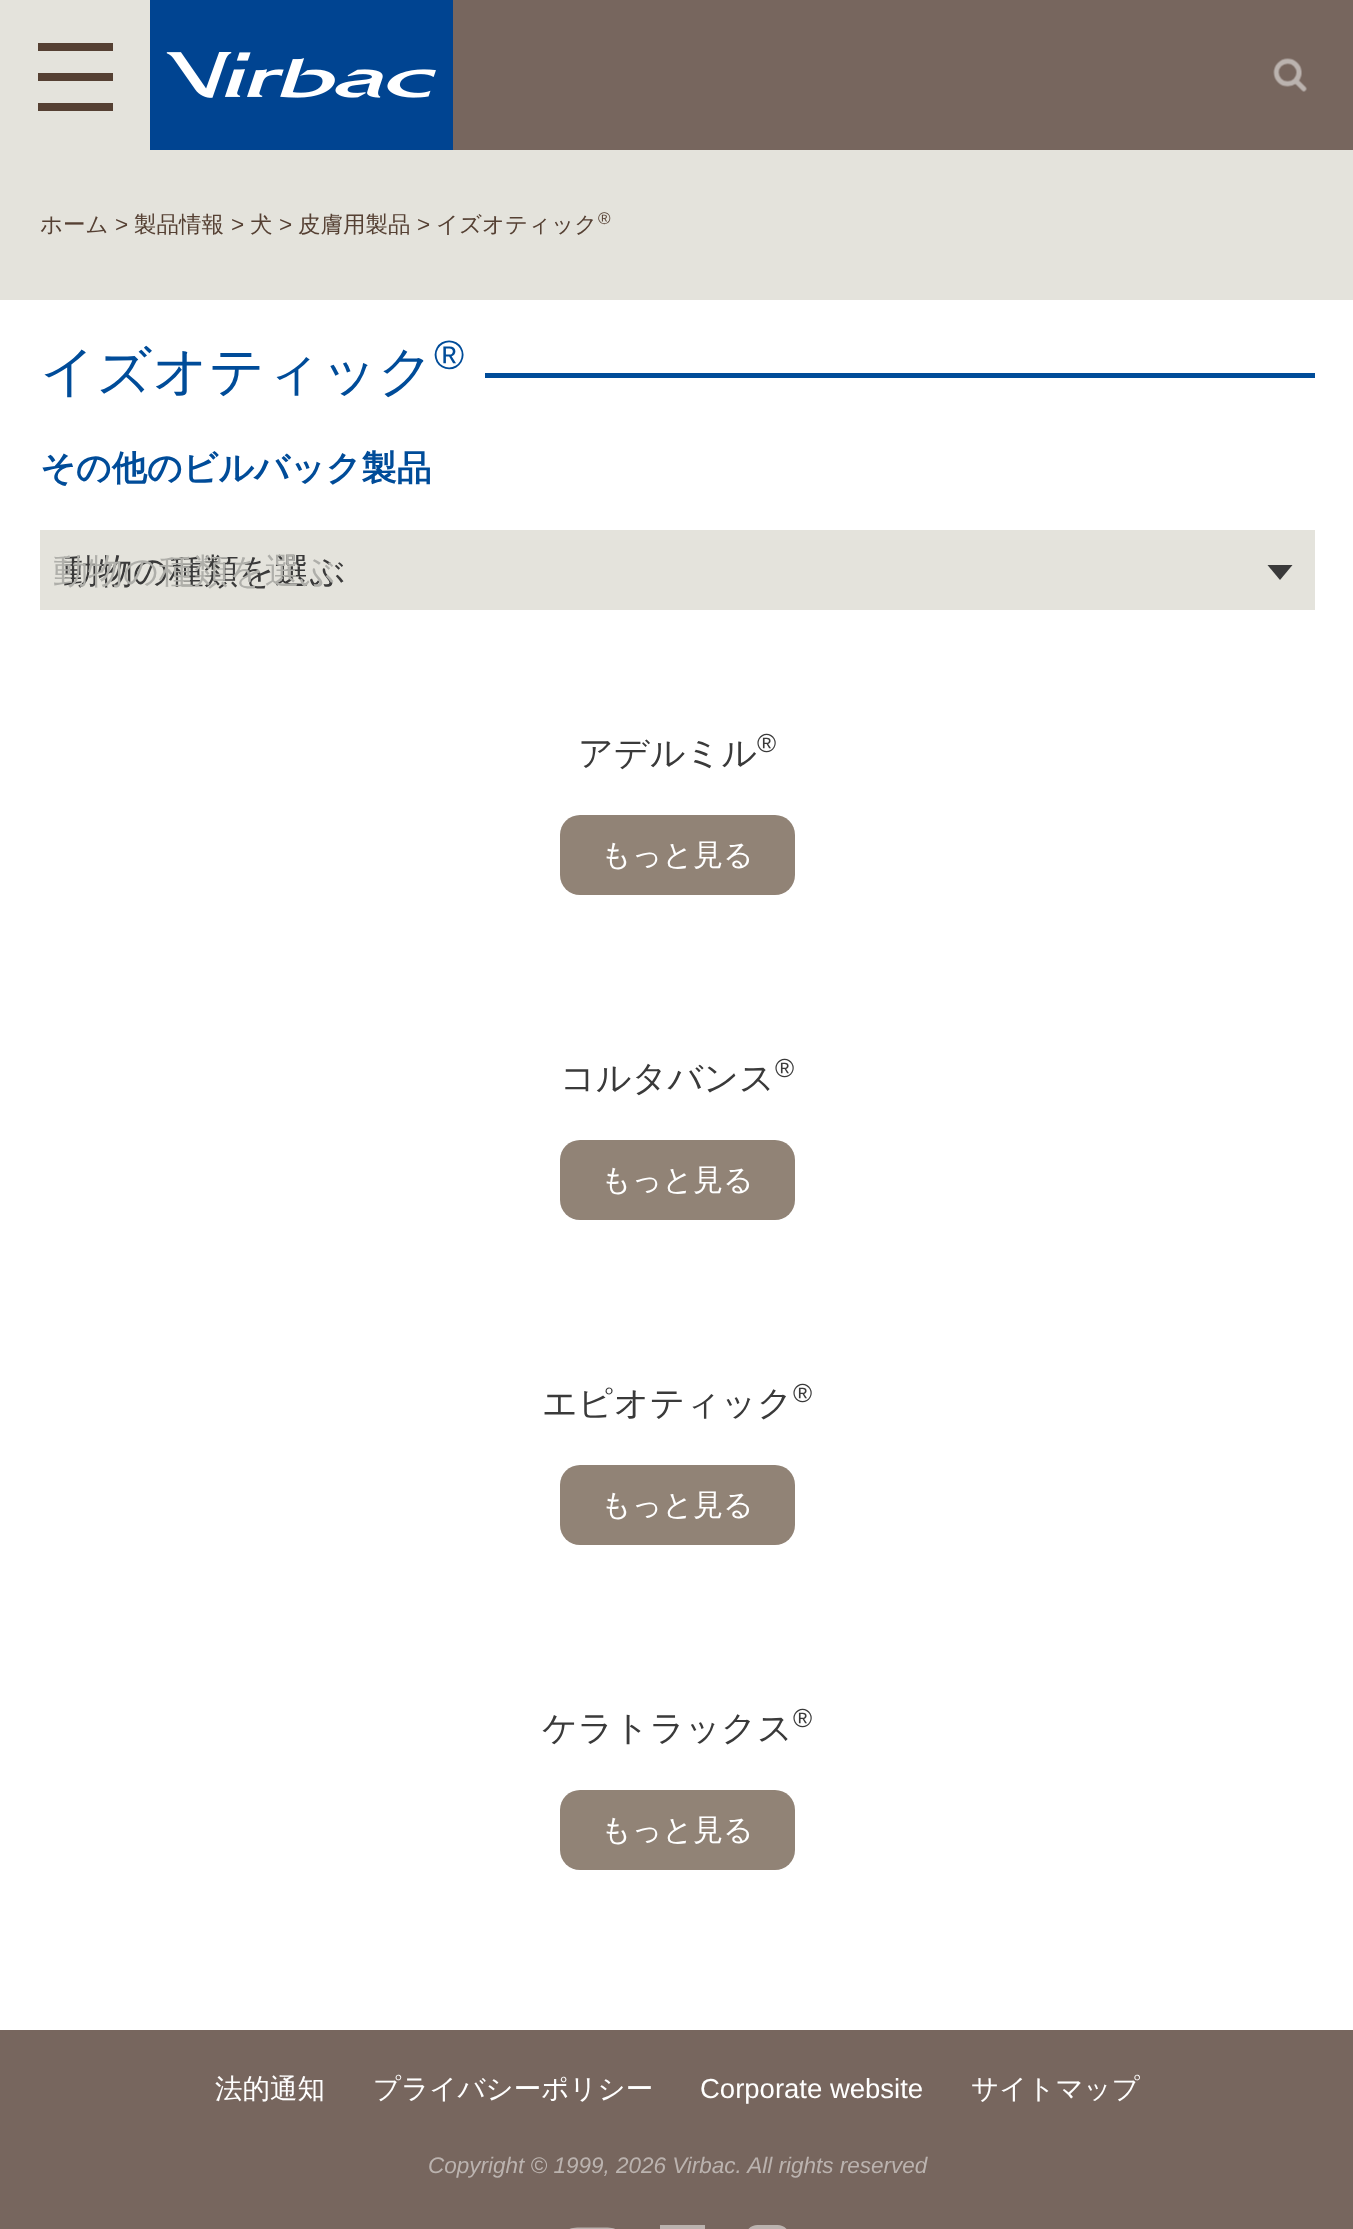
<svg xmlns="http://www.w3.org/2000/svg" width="1353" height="2229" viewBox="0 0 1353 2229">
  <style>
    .t1 { font: 500 22.5px WenQuanYi Zen Hei; fill: #554033; }
    .t2 { font: 22.5px Liberation Sans; fill: #554033; }
    .t3 { font: 17px Liberation Sans; fill: #554033; }
    .t4 { font: 500 55px WenQuanYi Zen Hei; fill: #004c99; }
    .t5 { font: 41px Liberation Sans; fill: #004c99; }
    .t6 { font: bold 35px WenQuanYi Zen Hei; fill: #004c99; }
    .t7 { font: 500 35px WenQuanYi Zen Hei; fill: #3a3a3a; }
    .t8 { font: 500 35px WenQuanYi Zen Hei; fill: #afafaa; }
    .t9 { font: 26px Liberation Sans; fill: #3a3a3a; }
    .t10 { font: 500 30px WenQuanYi Zen Hei; fill: #fff; }
    .t11 { font: 500 27.5px WenQuanYi Zen Hei; fill: #fff; }
    .t12 { font: 27.5px Liberation Sans; fill: #fff; }
    .t13 { font: italic 22.5px Liberation Sans; fill: #bbb3af; }
  </style>
  <rect width="100%" height="100%" fill="#fff"/>
  <rect x="0" y="0" width="150" height="150" fill="#e4e3dc"/>
  <rect x="38" y="73" width="75" height="8" fill="#554033"/>
  <rect x="38" y="43" width="75" height="8" fill="#554033"/>
  <rect x="38" y="103" width="75" height="8" fill="#554033"/>
  <image x="150" y="0" width="303" height="150" href="images/1.png"/>
  <rect x="453" y="0" width="900" height="150" fill="#77665e"/>
  <image x="1273" y="58" width="34" height="34" href="images/2.png"/>
  <rect x="0" y="150" width="1353" height="150" fill="#e4e3dc"/>
  <text x="40" y="232" class="t1">ホーム</text>
  <text x="115" y="232" class="t2">&gt;</text>
  <text x="134" y="232" class="t1">製品情報</text>
  <text x="231" y="232" class="t2">&gt;</text>
  <text x="250" y="232" class="t1">犬</text>
  <text x="279" y="232" class="t2">&gt;</text>
  <text x="298" y="232" class="t1">皮膚用製品</text>
  <text x="417" y="232" class="t2">&gt;</text>
  <text x="436" y="232" class="t1">イズオティック</text>
  <text x="598" y="224" class="t3">®</text>
  <text x="40" y="390" class="t4">イズオティック</text>
  <text x="434" y="369" class="t5">®</text>
  <rect x="485" y="373" width="830" height="5" fill="#004c99"/>
  <text x="40" y="480" class="t6">その他のビルバック製品</text>
  <rect x="40" y="530" width="1275" height="80" fill="#e4e3dc"/>
  <text x="63" y="583" class="t7">動物の種類を選ぶ</text>
  <text x="53" y="583" class="t8">動物の種類を選ぶ</text>
  <path d="M1267.5 565H1292.5L1280 580Z" fill="#3a3a3a"/>
  <text x="578" y="765" class="t7">アデルミル</text>
  <text x="757" y="752" class="t9">®</text>
  <rect x="560" y="815" width="235" height="80" rx="20" fill="#918376"/>
  <text x="601" y="865" class="t10">もっと見る</text>
  <text x="560" y="1090" class="t7">コルタバンス</text>
  <text x="775" y="1077" class="t9">®</text>
  <rect x="560" y="1140" width="235" height="80" rx="20" fill="#918376"/>
  <text x="601" y="1190" class="t10">もっと見る</text>
  <text x="542" y="1415" class="t7">エピオティック</text>
  <text x="793" y="1402" class="t9">®</text>
  <rect x="560" y="1465" width="235" height="80" rx="20" fill="#918376"/>
  <text x="601" y="1515" class="t10">もっと見る</text>
  <text x="542" y="1740" class="t7">ケラトラックス</text>
  <text x="793" y="1727" class="t9">®</text>
  <rect x="560" y="1790" width="235" height="80" rx="20" fill="#918376"/>
  <text x="601" y="1840" class="t10">もっと見る</text>
  <rect x="0" y="2030" width="1353" height="199" fill="#77665e"/>
  <text x="215" y="2098" class="t11">法的通知</text>
  <text x="373" y="2098" class="t11">プライバシーポリシー</text>
  <text x="700" y="2098" class="t12">Corporate website</text>
  <text x="971" y="2098" class="t11">サイトマップ</text>
  <text x="428" y="2173" class="t13">Copyright © 1999, 2026 Virbac. All rights reserved</text>
  <image x="569" y="2227" width="46" height="2" href="images/3.png"/>
  <rect x="660" y="2225" width="45" height="4" fill="#bbb3af"/>
  <image x="748" y="2225" width="39" height="4" href="images/4.png"/>
</svg>
